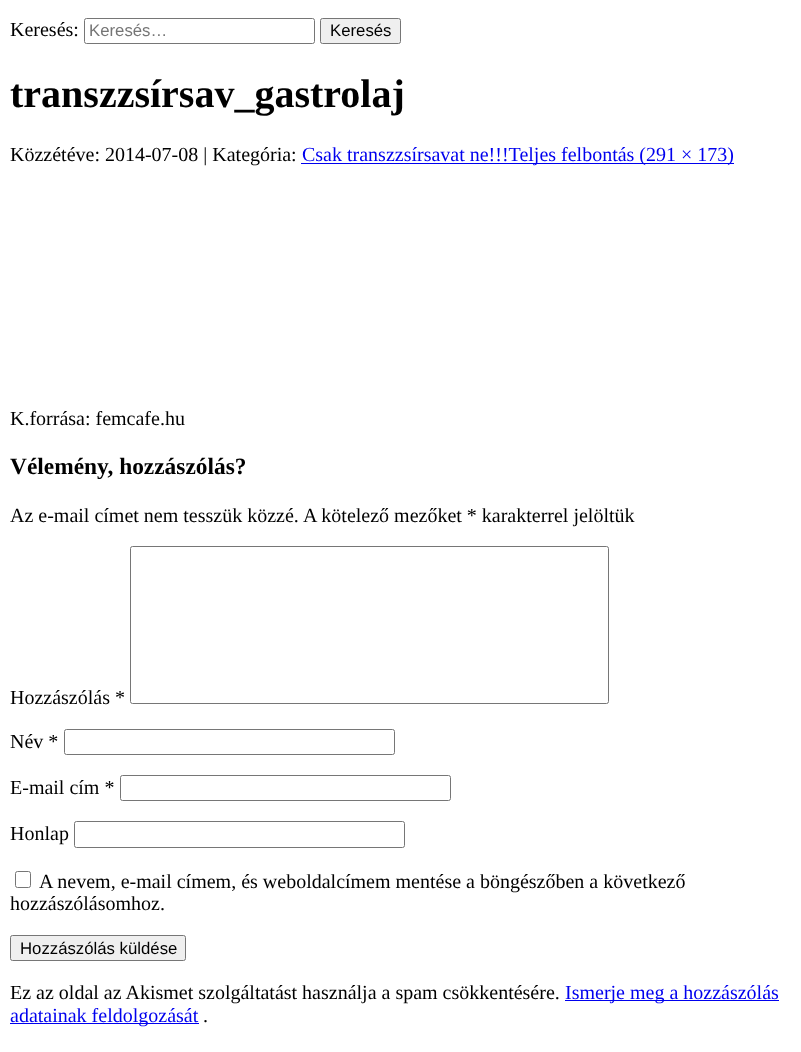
<svg xmlns="http://www.w3.org/2000/svg" width="801" height="1052" viewBox="0 0 801 1052">
  <style>
    .t1 { font: 20px Liberation Serif; fill: #000; }
    .t2 { font: 16.75px Liberation Sans; fill: #757575; }
    .t3 { font: 16.75px Liberation Sans; fill: #000; }
    .t4 { font: bold 40px Liberation Serif; fill: #000; }
    .t5 { font: 20px Liberation Serif; fill: #00e; }
    .t6 { font: bold 23.4px Liberation Serif; fill: #000; }
  </style>
  <rect width="100%" height="100%" fill="#fff"/>
  <text x="10" y="36" class="t1">Keresés:</text>
  <rect x="84.5" y="18.5" width="230" height="25" rx="2" fill="none" stroke="#767676"/>
  <text x="89" y="36" class="t2">Keresés…</text>
  <rect x="320.5" y="18.5" width="80" height="25" rx="2" fill="#efefef" stroke="#767676"/>
  <text x="330" y="36" class="t3">Keresés</text>
  <text x="10" y="107" class="t4">transzzsírsav_gastrolaj</text>
  <text x="10" y="161" class="t1">Közzétéve: 2014-07-08 | Kategória:</text>
  <rect x="301" y="163" width="433" height="1" fill="#00e"/>
  <text x="302" y="161" class="t5">Csak transzzsírsavat ne!!!Teljes felbontás (291 × 173)</text>
  <text x="10" y="425" class="t1">K.forrása: femcafe.hu</text>
  <text x="10" y="474" class="t6">Vélemény, hozzászólás?</text>
  <text x="10" y="522" class="t1">Az e-mail címet nem tesszük közzé.</text>
  <text x="303" y="522" class="t1">A kötelező mezőket * karakterrel jelöltük</text>
  <text x="10" y="704" class="t1">Hozzászólás *</text>
  <rect x="130.5" y="546.5" width="478" height="157" rx="2" fill="none" stroke="#767676"/>
  <text x="10" y="748" class="t1">Név *</text>
  <rect x="64.5" y="729.5" width="330" height="25" rx="2" fill="none" stroke="#767676"/>
  <text x="10" y="794" class="t1">E-mail cím *</text>
  <rect x="120.5" y="775.5" width="330" height="25" rx="2" fill="none" stroke="#767676"/>
  <text x="10" y="840" class="t1">Honlap</text>
  <rect x="74.5" y="821.5" width="330" height="26" rx="2" fill="none" stroke="#767676"/>
  <rect x="15.5" y="871.5" width="15" height="16" rx="2" fill="none" stroke="#767676"/>
  <text x="39" y="888" class="t1">A nevem, e-mail címem, és weboldalcímem mentése a böngészőben a következő</text>
  <text x="10" y="910" class="t1">hozzászólásomhoz.</text>
  <rect x="10.5" y="935.5" width="175" height="25" rx="2" fill="#efefef" stroke="#767676"/>
  <text x="20" y="954" class="t3">Hozzászólás küldése</text>
  <text x="10" y="999" class="t1">Ez az oldal az Akismet szolgáltatást használja a spam csökkentésére.</text>
  <rect x="565" y="1000" width="214" height="1" fill="#00e"/>
  <text x="565" y="999" class="t5">Ismerje meg a hozzászólás</text>
  <rect x="10" y="1023" width="189" height="1" fill="#00e"/>
  <text x="10" y="1022" class="t5">adatainak feldolgozását</text>
  <text x="203" y="1022" class="t1">.</text>
</svg>
